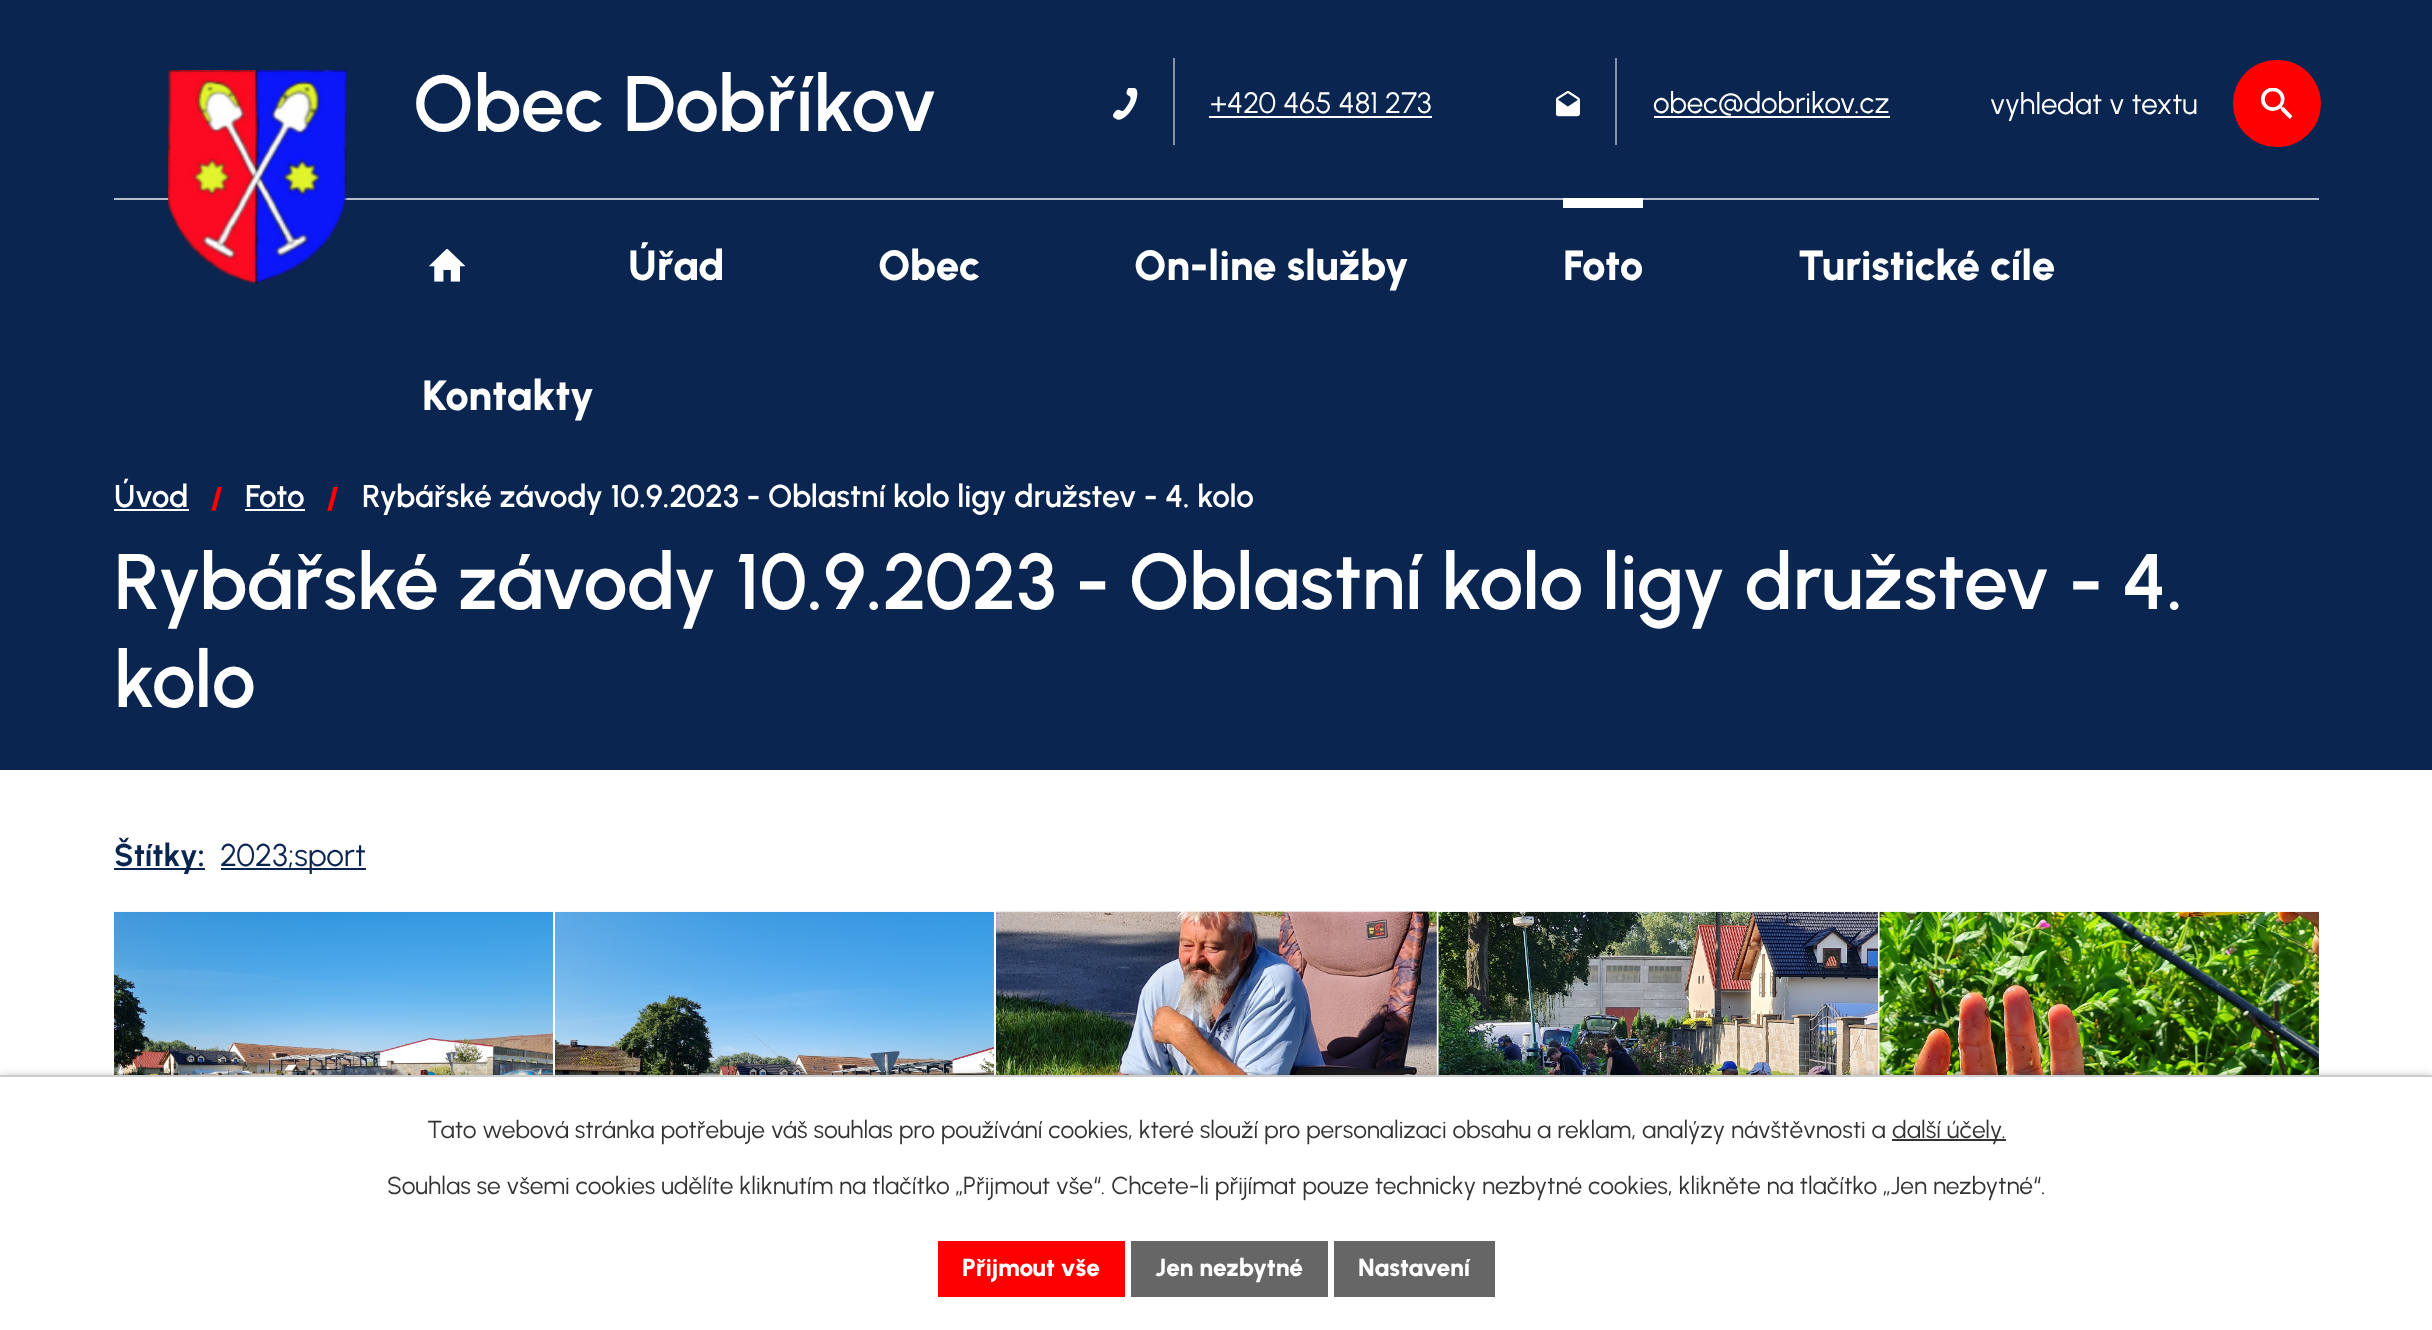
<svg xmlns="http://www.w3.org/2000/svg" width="2432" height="1330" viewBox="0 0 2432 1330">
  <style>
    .t1 { font: 600 78.75px Urbanist; fill: #fff; }
    .t2 { font: 29.5px Urbanist; fill: #fff; }
    .t3 { font: 800 42px Urbanist; fill: #fff; }
    .t4 { font: 600 31.5px Urbanist; fill: #fff; }
    .t5 { font: 800 31.5px Urbanist; fill: #f00; }
    .t6 { font: bold 31.5px Urbanist; fill: #0a2650; }
    .t7 { font: 31.5px Urbanist; fill: #0a2650; }
    .t8 { font: 24.5px Urbanist; fill: #333; }
    .t9 { font: 800 24.5px Urbanist; fill: #fff; }
  </style>
  <defs>
    <clipPath id="clip1"><rect x="1990" y="86" width="213" height="35"/></clipPath>
  </defs>
  <rect width="100%" height="100%" fill="#fff"/>
  <rect x="0" y="0" width="2432" height="770" fill="#0a2650"/>
  <rect x="114" y="198" width="2205" height="2" fill="#b6becb"/>
  <image x="168" y="70" width="179" height="214" href="images/1.png"/>
  <text x="413" y="131" class="t1">Obec Dobříkov</text>
  <image x="1113" y="88" width="25" height="32" href="images/2.png"/>
  <rect x="1173" y="58" width="2" height="87" fill="#8593a8"/>
  <text x="1210" y="113" class="t2">+420 465 481 273</text>
  <rect x="1209" y="116" width="223" height="2" fill="#fff"/>
  <image x="1556" y="91" width="24" height="26" href="images/3.png"/>
  <rect x="1615" y="58" width="2" height="87" fill="#8593a8"/>
  <text x="1653" y="113" class="t2">obec@dobrikov.cz</text>
  <rect x="1654" y="116" width="236" height="2" fill="#fff"/>
  <g clip-path="url(#clip1)">
    <text x="1990" y="114" class="t2">vyhledat v textu</text>
  </g>
  <rect x="2233" y="60" width="88" height="87" rx="43.5" fill="#f00"/>
  <image x="2261" y="88" width="32" height="31" href="images/4.png"/>
  <image x="429" y="249" width="37" height="33" href="images/5.png"/>
  <text x="628" y="280" class="t3">Úřad</text>
  <text x="878" y="280" class="t3">Obec</text>
  <text x="1134" y="280" class="t3">On-line služby</text>
  <rect x="1563" y="198" width="80" height="10" fill="#fff"/>
  <text x="1563" y="280" class="t3">Foto</text>
  <text x="1798" y="280" class="t3">Turistické cíle</text>
  <text x="422" y="410" class="t3">Kontakty</text>
  <text x="114" y="507" class="t4">Úvod</text>
  <rect x="114" y="509" width="75" height="2" fill="#fff"/>
  <text x="210" y="509" class="t5">/</text>
  <text x="245" y="507" class="t4">Foto</text>
  <rect x="245" y="509" width="60" height="2" fill="#fff"/>
  <text x="326" y="509" class="t5">/</text>
  <text x="362" y="507" class="t4">Rybářské závody 10.9.2023 - Oblastní kolo ligy družstev - 4. kolo</text>
  <text x="114" y="609" class="t1">Rybářské závody 10.9.2023 - Oblastní kolo ligy družstev - 4.</text>
  <text x="114" y="707" class="t1">kolo</text>
  <rect x="114" y="868" width="91" height="2" fill="#0a2650"/>
  <text x="114" y="866" class="t6">Štítky:</text>
  <rect x="221" y="868" width="145" height="2" fill="#0a2650"/>
  <text x="220" y="866" class="t7">2023;sport</text>
  <image x="114" y="911" width="439" height="164" href="images/6.png"/>
  <image x="555" y="911" width="439" height="164" href="images/7.png"/>
  <image x="996" y="911" width="441" height="164" href="images/8.png"/>
  <image x="1438" y="911" width="440" height="164" href="images/9.png"/>
  <image x="1879" y="911" width="440" height="164" href="images/10.png"/>
  <rect x="0" y="1075" width="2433" height="255" fill="#00000033" filter="blur(4.5px)"/>
  <rect x="0" y="1077" width="2432" height="253" fill="#fff"/>
  <rect x="0" y="1075" width="2432" height="2" fill="#ccc"/>
  <text x="427" y="1138" class="t8">Tato webová stránka potřebuje váš souhlas pro používání cookies, které slouží pro personalizaci obsahu a reklam, analýzy návštěvnosti a</text>
  <rect x="1892" y="1139" width="114" height="2" fill="#333"/>
  <text x="1892" y="1138" class="t8">další účely.</text>
  <text x="387" y="1194" class="t8">Souhlas se všemi cookies udělíte kliknutím na tlačítko „Přijmout vše“. Chcete-li přijímat pouze technicky nezbytné cookies, klikněte na tlačítko „Jen nezbytné“.</text>
  <rect x="938" y="1241" width="187" height="56" fill="#f00"/>
  <text x="962" y="1276" class="t9">Přijmout vše</text>
  <rect x="1131" y="1241" width="197" height="56" fill="#666"/>
  <text x="1155" y="1276" class="t9">Jen nezbytné</text>
  <rect x="1334" y="1241" width="161" height="56" fill="#666"/>
  <text x="1358" y="1276" class="t9">Nastavení</text>
</svg>
